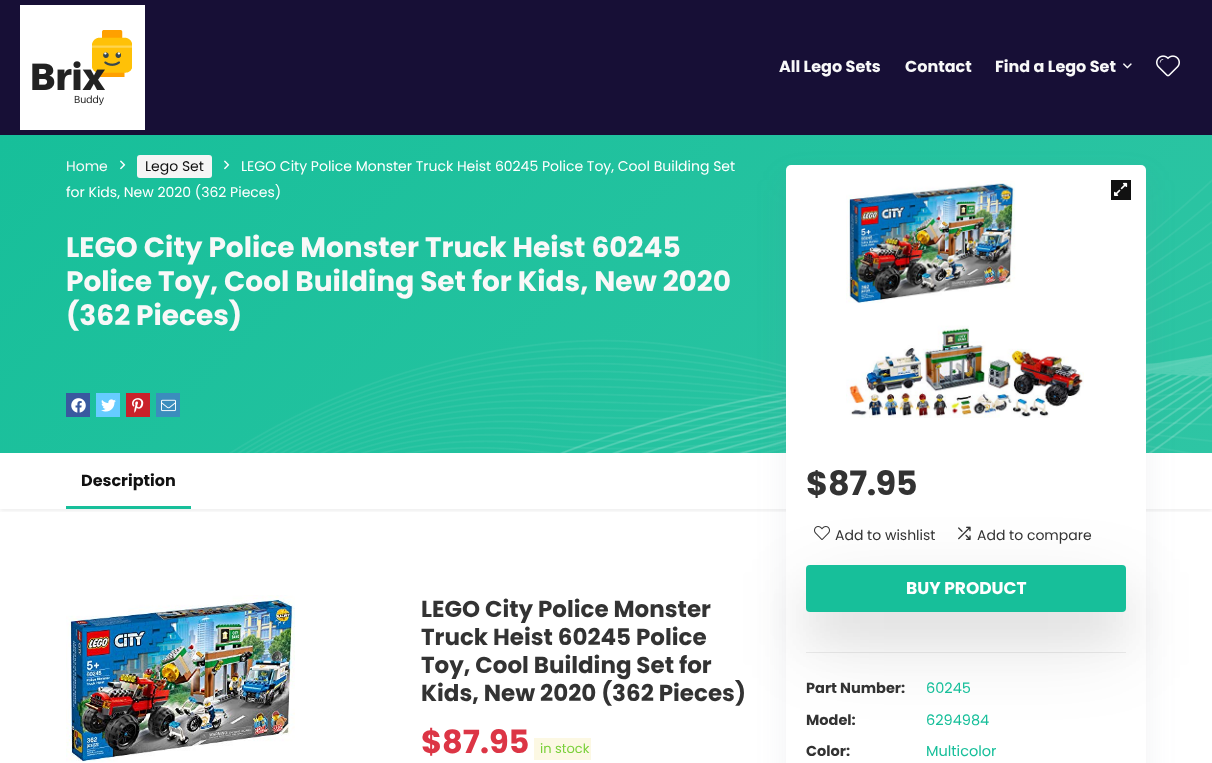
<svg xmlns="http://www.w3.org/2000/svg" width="1212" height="763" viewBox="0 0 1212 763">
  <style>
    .t1 { font: 14px Poppins; fill: #fff; }
    .t2 { font: bold 28px Poppins; fill: #f8f8f8; }
    .t3 { font: bold 16px Poppins; fill: #f8f8f8; }
    .t4 { font: 14px Poppins; fill: #f8f8f8; }
    .t5 { font: 14px Poppins; fill: #111; }
    .t6 { font: bold 33.5px Poppins; letter-spacing: -0.5px; fill: #333; }
    .t7 { font: 14px Poppins; fill: #333; }
    .t8 { font: bold 17px Poppins; fill: #fff; }
    .t9 { font: bold 14.5px Poppins; fill: #333; }
    .t10 { font: 14.5px Poppins; fill: #17bf9a; }
    .t11 { font: bold 16px Poppins; fill: #111; }
    .t12 { font: bold 23px Poppins; fill: #333; }
    .t13 { font: bold 32px Poppins; fill: #dc3545; }
    .t14 { font: 13px Poppins; fill: #7ad03a; }
  </style>
  <defs>
    <clipPath id="clip1"><rect x="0" y="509" width="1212" height="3"/></clipPath>
    <linearGradient id="g1" gradientUnits="userSpaceOnUse" x1="223" y1="-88" x2="989" y2="677"><stop offset="0" stop-color="#17bf9a"/><stop offset="1" stop-color="#2ec5a4"/></linearGradient>
    <clipPath id="clip2"><rect x="806" y="470" width="320" height="43"/></clipPath>
  </defs>
  <rect width="100%" height="100%" fill="#fff"/>
  <g clip-path="url(#clip1)">
    <rect x="0" y="455" width="1212" height="56" fill="#00000012" filter="blur(2px)"/>
  </g>
  <rect x="0" y="135" width="1212" height="318" fill="url(#g1)"/>
  <text x="66" y="197" class="t1">for Kids, New 2020 (362 Pieces)</text>
  <text x="66" y="257" class="t2">LEGO City Police Monster Truck Heist 60245</text>
  <text x="66" y="291" class="t2">Police Toy, Cool Building Set for Kids, New 2020</text>
  <text x="66" y="325" class="t2">(362 Pieces)</text>
  <image x="229" y="179" width="983" height="274" href="images/14.png"/>
  <rect x="786" y="180" width="360" height="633" rx="5" fill="#777b921a" filter="blur(15px)"/>
  <rect x="0" y="0" width="1212" height="135" fill="#170f36"/>
  <image x="20" y="5" width="125" height="125" href="images/1.png"/>
  <text x="779" y="72" class="t3">All Lego Sets</text>
  <text x="905" y="72" class="t3">Contact</text>
  <text x="995" y="72" class="t3">Find a Lego Set</text>
  <image x="1123" y="63" width="9" height="6" href="images/2.png"/>
  <image x="1156" y="55" width="24" height="22" href="images/3.png"/>
  <text x="66" y="171" class="t4">Home</text>
  <image x="120" y="160" width="6" height="10" href="images/4.png"/>
  <rect x="137" y="155" width="75" height="23" rx="3" fill="#f5f5f5"/>
  <text x="145" y="171" class="t5">Lego Set</text>
  <image x="224" y="160" width="6" height="10" href="images/5.png"/>
  <text x="241" y="171" class="t1">LEGO City Police Monster Truck Heist 60245 Police Toy, Cool Building Set</text>
  <rect x="66" y="393" width="24" height="24" fill="#39599f"/>
  <image x="71" y="398" width="15" height="15" href="images/6.png"/>
  <rect x="96" y="393" width="24" height="24" fill="#6cf"/>
  <image x="101" y="399" width="15" height="13" href="images/7.png"/>
  <rect x="126" y="393" width="24" height="24" fill="#ca212a"/>
  <image x="132" y="398" width="12" height="15" href="images/8.png"/>
  <rect x="156" y="393" width="24" height="24" fill="#3b8dbd"/>
  <image x="161" y="399" width="15" height="13" href="images/9.png"/>
  <rect x="786" y="165" width="360" height="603" rx="5" fill="#fff"/>
  <image x="846" y="180" width="238" height="238" href="images/10.png"/>
  <rect x="1111" y="180" width="20" height="20" fill="#111"/>
  <image x="1114" y="182" width="14" height="14" href="images/11.png"/>
  <g clip-path="url(#clip2)">
    <text x="806" y="495" class="t6">$</text>
  </g>
  <text x="828" y="495" class="t6">87.95</text>
  <image x="814" y="526" width="16" height="14" href="images/12.png"/>
  <text x="835" y="540" class="t7">Add to wishlist</text>
  <image x="958" y="526" width="13" height="14" href="images/13.png"/>
  <text x="977" y="540" class="t7">Add to compare</text>
  <rect x="806" y="652" width="320" height="1" fill="#ededed"/>
  <rect x="806" y="595" width="320" height="47" rx="4" fill="#0000001f" filter="blur(40px)"/>
  <rect x="806" y="593" width="320" height="47" rx="4" fill="#0000000f" filter="blur(19px)"/>
  <rect x="806" y="565" width="320" height="47" rx="4" fill="#17bf9a"/>
  <text x="906" y="594" class="t8">BUY PRODUCT</text>
  <text x="806" y="693" class="t9">Part Number:</text>
  <text x="926" y="693" class="t10">60245</text>
  <text x="806" y="725" class="t9">Model:</text>
  <text x="926" y="725" class="t10">6294984</text>
  <text x="806" y="756" class="t9">Color:</text>
  <text x="926" y="756" class="t10">Multicolor</text>
  <text x="81" y="486" class="t11">Description</text>
  <rect x="66" y="506" width="125" height="3" fill="#17bf9a"/>
  <image x="66" y="595" width="229" height="167" href="images/15.png"/>
  <text x="421" y="617" class="t12">LEGO City Police Monster</text>
  <text x="421" y="645" class="t12">Truck Heist 60245 Police</text>
  <text x="421" y="673" class="t12">Toy, Cool Building Set for</text>
  <text x="421" y="701" class="t12">Kids, New 2020 (362 Pieces)</text>
  <text x="421" y="753" class="t13">$87.95</text>
  <rect x="534" y="738" width="57" height="22" fill="#fcf8e3"/>
  <text x="540" y="753" class="t14">in stock</text>
</svg>
